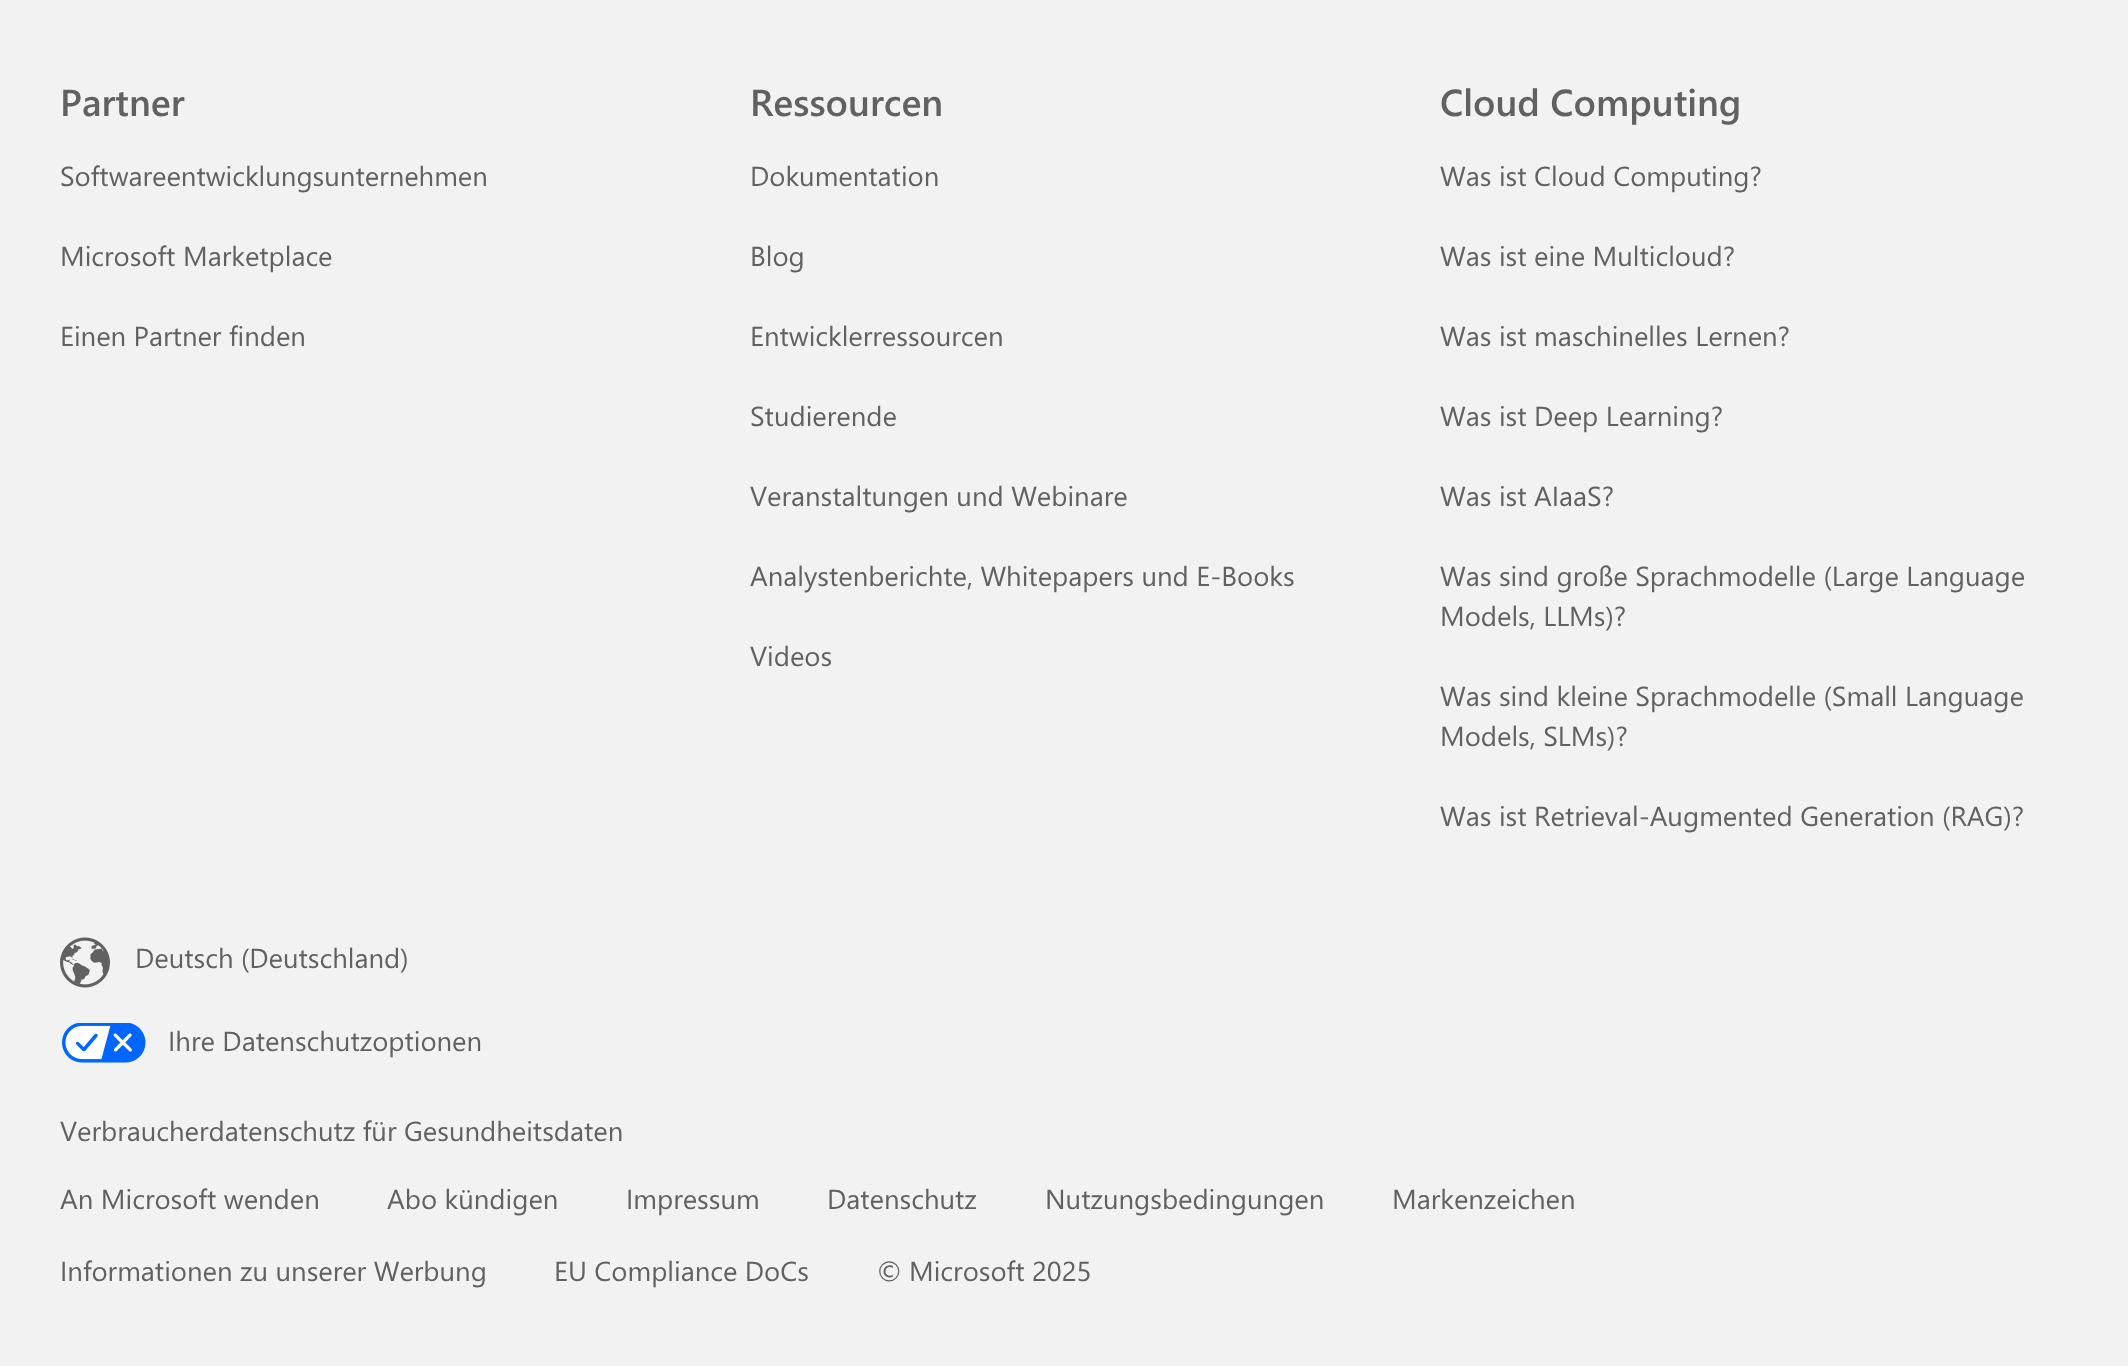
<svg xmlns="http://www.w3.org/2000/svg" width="2128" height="1366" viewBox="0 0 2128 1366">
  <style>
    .t1 { font: 600 37.5px Segoe UI; fill: #616161; }
    .t2 { font: 27.5px Segoe UI; fill: #616161; }
  </style>
  <rect width="100%" height="100%" fill="#f2f2f2"/>
  <text x="60" y="116" class="t1">Partner</text>
  <text x="60" y="186" class="t2">Softwareentwicklungsunternehmen</text>
  <text x="60" y="266" class="t2">Microsoft Marketplace</text>
  <text x="60" y="346" class="t2">Einen Partner finden</text>
  <text x="750" y="116" class="t1">Ressourcen</text>
  <text x="750" y="186" class="t2">Dokumentation</text>
  <text x="750" y="266" class="t2">Blog</text>
  <text x="750" y="346" class="t2">Entwicklerressourcen</text>
  <text x="750" y="426" class="t2">Studierende</text>
  <text x="750" y="506" class="t2">Veranstaltungen und Webinare</text>
  <text x="750" y="586" class="t2">Analystenberichte, Whitepapers und E-Books</text>
  <text x="750" y="666" class="t2">Videos</text>
  <text x="1440" y="116" class="t1">Cloud Computing</text>
  <text x="1440" y="186" class="t2">Was ist Cloud Computing?</text>
  <text x="1440" y="266" class="t2">Was ist eine Multicloud?</text>
  <text x="1440" y="346" class="t2">Was ist maschinelles Lernen?</text>
  <text x="1440" y="426" class="t2">Was ist Deep Learning?</text>
  <text x="1440" y="506" class="t2">Was ist AIaaS?</text>
  <text x="1440" y="586" class="t2">Was sind große Sprachmodelle (Large Language</text>
  <text x="1440" y="626" class="t2">Models, LLMs)?</text>
  <text x="1440" y="706" class="t2">Was sind kleine Sprachmodelle (Small Language</text>
  <text x="1440" y="746" class="t2">Models, SLMs)?</text>
  <text x="1440" y="826" class="t2">Was ist Retrieval-Augmented Generation (RAG)?</text>
  <image x="60" y="937" width="50" height="51" href="images/1.png"/>
  <text x="135" y="968" class="t2">Deutsch (Deutschland)</text>
  <image x="62" y="1023" width="84" height="40" href="images/2.png"/>
  <text x="168" y="1051" class="t2">Ihre Datenschutzoptionen</text>
  <text x="60" y="1141" class="t2">Verbraucherdatenschutz für Gesundheitsdaten</text>
  <text x="60" y="1209" class="t2">An Microsoft wenden</text>
  <text x="387" y="1209" class="t2">Abo kündigen</text>
  <text x="626" y="1209" class="t2">Impressum</text>
  <text x="827" y="1209" class="t2">Datenschutz</text>
  <text x="1045" y="1209" class="t2">Nutzungsbedingungen</text>
  <text x="1392" y="1209" class="t2">Markenzeichen</text>
  <text x="60" y="1281" class="t2">Informationen zu unserer Werbung</text>
  <text x="554" y="1281" class="t2">EU Compliance DoCs</text>
  <text x="877" y="1281" class="t2">© Microsoft 2025</text>
</svg>
